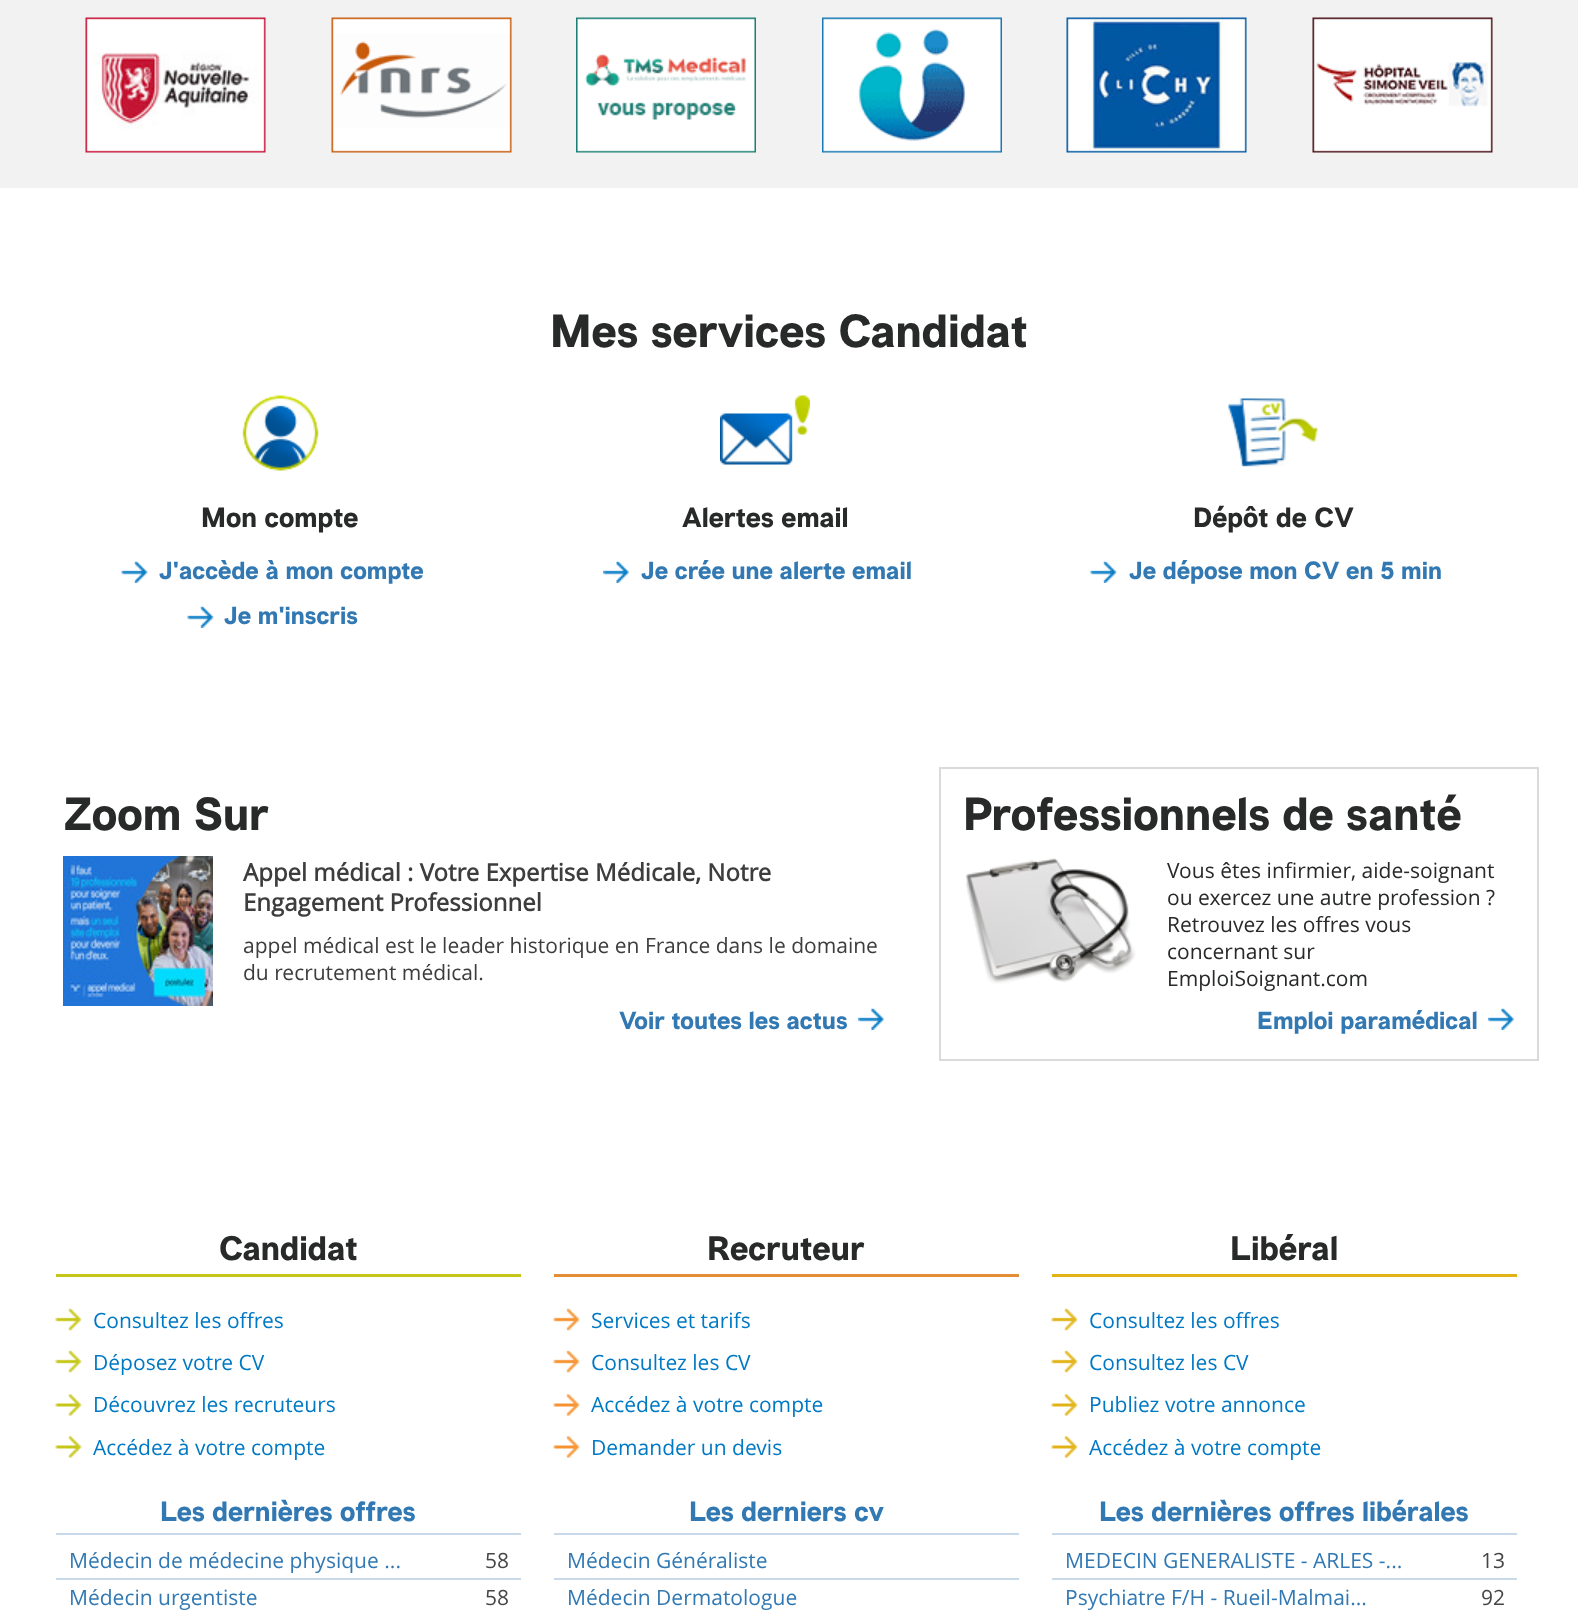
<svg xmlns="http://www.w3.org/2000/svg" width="1578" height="1614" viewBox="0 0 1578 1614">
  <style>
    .t1 { font: 45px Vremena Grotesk; fill: #282929; }
    .t2 { font: 27px Vremena Grotesk; fill: #282929; }
    .t3 { font: 24px Vremena Grotesk; fill: #3279b3; }
    .t4 { font: bold 24px Open Sans; fill: #3d3d3d; }
    .t5 { font: 21px Open Sans; fill: #3d3d3d; }
    .t6 { font: 21px Open Sans; fill: #282929; }
    .t7 { font: 33px Vremena Grotesk; fill: #282929; }
    .t8 { font: 21px Open Sans; fill: #0079c4; }
    .t9 { font: 27px Vremena Grotesk; fill: #3279b3; }
    .t10 { font: 21px Open Sans; fill: #3279b3; }
    .t11 { font: 21px Open Sans; fill: #454545; }
  </style>
  <rect width="100%" height="100%" fill="#fff"/>
  <rect x="0" y="0" width="1578" height="188" fill="#f2f2f2"/>
  <image x="85" y="17" width="181" height="136" href="images/1.png"/>
  <image x="331" y="17" width="181" height="136" href="images/2.png"/>
  <image x="576" y="17" width="180" height="136" href="images/3.png"/>
  <image x="822" y="17" width="180" height="136" href="images/4.png"/>
  <image x="1066" y="17" width="181" height="136" href="images/5.png"/>
  <image x="1312" y="17" width="181" height="136" href="images/6.png"/>
  <text x="550" y="347" class="t1">Mes services Candidat</text>
  <image x="242" y="395" width="77" height="76" href="images/7.png"/>
  <text x="201" y="527" class="t2">Mon compte</text>
  <image x="121" y="560" width="27" height="23" href="images/8.png"/>
  <text x="159" y="579" class="t3">J'accède à mon compte</text>
  <image x="187" y="605" width="27" height="23" href="images/8.png"/>
  <text x="224" y="624" class="t3">Je m'inscris</text>
  <image x="720" y="395" width="90" height="70" href="images/9.png"/>
  <text x="682" y="527" class="t2">Alertes email</text>
  <image x="603" y="560" width="26" height="23" href="images/10.png"/>
  <text x="641" y="579" class="t3">Je crée une alerte email</text>
  <image x="1228" y="398" width="91" height="69" href="images/11.png"/>
  <text x="1193" y="527" class="t2">Dépôt de CV</text>
  <image x="1090" y="560" width="27" height="23" href="images/8.png"/>
  <text x="1129" y="579" class="t3">Je dépose mon CV en 5 min</text>
  <text x="63" y="830" class="t1">Zoom Sur</text>
  <image x="63" y="856" width="150" height="150" href="images/12.png"/>
  <text x="243" y="881" class="t4">Appel médical : Votre Expertise Médicale, Notre</text>
  <text x="243" y="911" class="t4">Engagement Professionnel</text>
  <text x="243" y="953" class="t5">appel médical est le leader historique en France dans le domaine</text>
  <text x="243" y="980" class="t5">du recrutement médical.</text>
  <image x="858" y="1007" width="26" height="23" href="images/13.png"/>
  <text x="619" y="1029" class="t3">Voir toutes les actus</text>
  <rect x="940" y="768" width="598" height="292" fill="none" stroke="#dadada" stroke-width="2"/>
  <text x="963" y="830" class="t1">Professionnels de santé</text>
  <image x="965" y="858" width="171" height="126" href="images/14.png"/>
  <text x="1167" y="878" class="t6">Vous êtes infirmier, aide-soignant</text>
  <text x="1167" y="905" class="t6">ou exercez une autre profession ?</text>
  <text x="1167" y="932" class="t6">Retrouvez les offres vous</text>
  <text x="1167" y="959" class="t6">concernant sur</text>
  <text x="1167" y="986" class="t6">EmploiSoignant.com</text>
  <image x="1488" y="1007" width="26" height="23" href="images/10.png"/>
  <text x="1257" y="1029" class="t3">Emploi paramédical</text>
  <rect x="56" y="1274" width="465" height="3" fill="#c6c618"/>
  <text x="219" y="1260" class="t7">Candidat</text>
  <image x="55" y="1308" width="27" height="23" href="images/15.png"/>
  <text x="93" y="1328" class="t8">Consultez les offres</text>
  <image x="55" y="1350" width="27" height="23" href="images/15.png"/>
  <text x="93" y="1370" class="t8">Déposez votre CV</text>
  <image x="55" y="1393" width="27" height="23" href="images/16.png"/>
  <text x="93" y="1412" class="t8">Découvrez les recruteurs</text>
  <image x="55" y="1435" width="27" height="23" href="images/16.png"/>
  <text x="93" y="1455" class="t8">Accédez à votre compte</text>
  <rect x="56" y="1533" width="465" height="2" fill="#c8dae9"/>
  <text x="160" y="1521" class="t9">Les dernières offres</text>
  <rect x="56" y="1578" width="465" height="2" fill="#c8dae9"/>
  <text x="69" y="1568" class="t10">Médecin de médecine physique ...</text>
  <text x="485" y="1568" class="t11">58</text>
  <text x="69" y="1605" class="t10">Médecin urgentiste</text>
  <text x="485" y="1605" class="t11">58</text>
  <rect x="554" y="1274" width="465" height="3" fill="#e48d37"/>
  <text x="707" y="1260" class="t7">Recruteur</text>
  <image x="553" y="1308" width="27" height="23" href="images/17.png"/>
  <text x="591" y="1328" class="t8">Services et tarifs</text>
  <image x="553" y="1350" width="27" height="23" href="images/17.png"/>
  <text x="591" y="1370" class="t8">Consultez les CV</text>
  <image x="553" y="1393" width="27" height="23" href="images/18.png"/>
  <text x="591" y="1412" class="t8">Accédez à votre compte</text>
  <image x="553" y="1435" width="27" height="23" href="images/18.png"/>
  <text x="591" y="1455" class="t8">Demander un devis</text>
  <rect x="554" y="1533" width="465" height="2" fill="#c8dae9"/>
  <text x="689" y="1521" class="t9">Les derniers cv</text>
  <rect x="554" y="1578" width="465" height="2" fill="#c8dae9"/>
  <text x="567" y="1568" class="t10">Médecin Généraliste</text>
  <text x="567" y="1605" class="t10">Médecin Dermatologue</text>
  <rect x="1052" y="1274" width="465" height="3" fill="#e1b314"/>
  <text x="1230" y="1260" class="t7">Libéral</text>
  <image x="1051" y="1308" width="27" height="23" href="images/19.png"/>
  <text x="1089" y="1328" class="t8">Consultez les offres</text>
  <image x="1051" y="1350" width="27" height="23" href="images/19.png"/>
  <text x="1089" y="1370" class="t8">Consultez les CV</text>
  <image x="1051" y="1393" width="27" height="23" href="images/20.png"/>
  <text x="1089" y="1412" class="t8">Publiez votre annonce</text>
  <image x="1051" y="1435" width="27" height="23" href="images/20.png"/>
  <text x="1089" y="1455" class="t8">Accédez à votre compte</text>
  <rect x="1052" y="1533" width="465" height="2" fill="#c8dae9"/>
  <text x="1099" y="1521" class="t9">Les dernières offres libérales</text>
  <rect x="1052" y="1578" width="465" height="2" fill="#c8dae9"/>
  <text x="1065" y="1568" class="t10">MEDECIN GENERALISTE - ARLES -...</text>
  <text x="1481" y="1568" class="t11">13</text>
  <text x="1065" y="1605" class="t10">Psychiatre F/H - Rueil-Malmai...</text>
  <text x="1481" y="1605" class="t11">92</text>
</svg>
